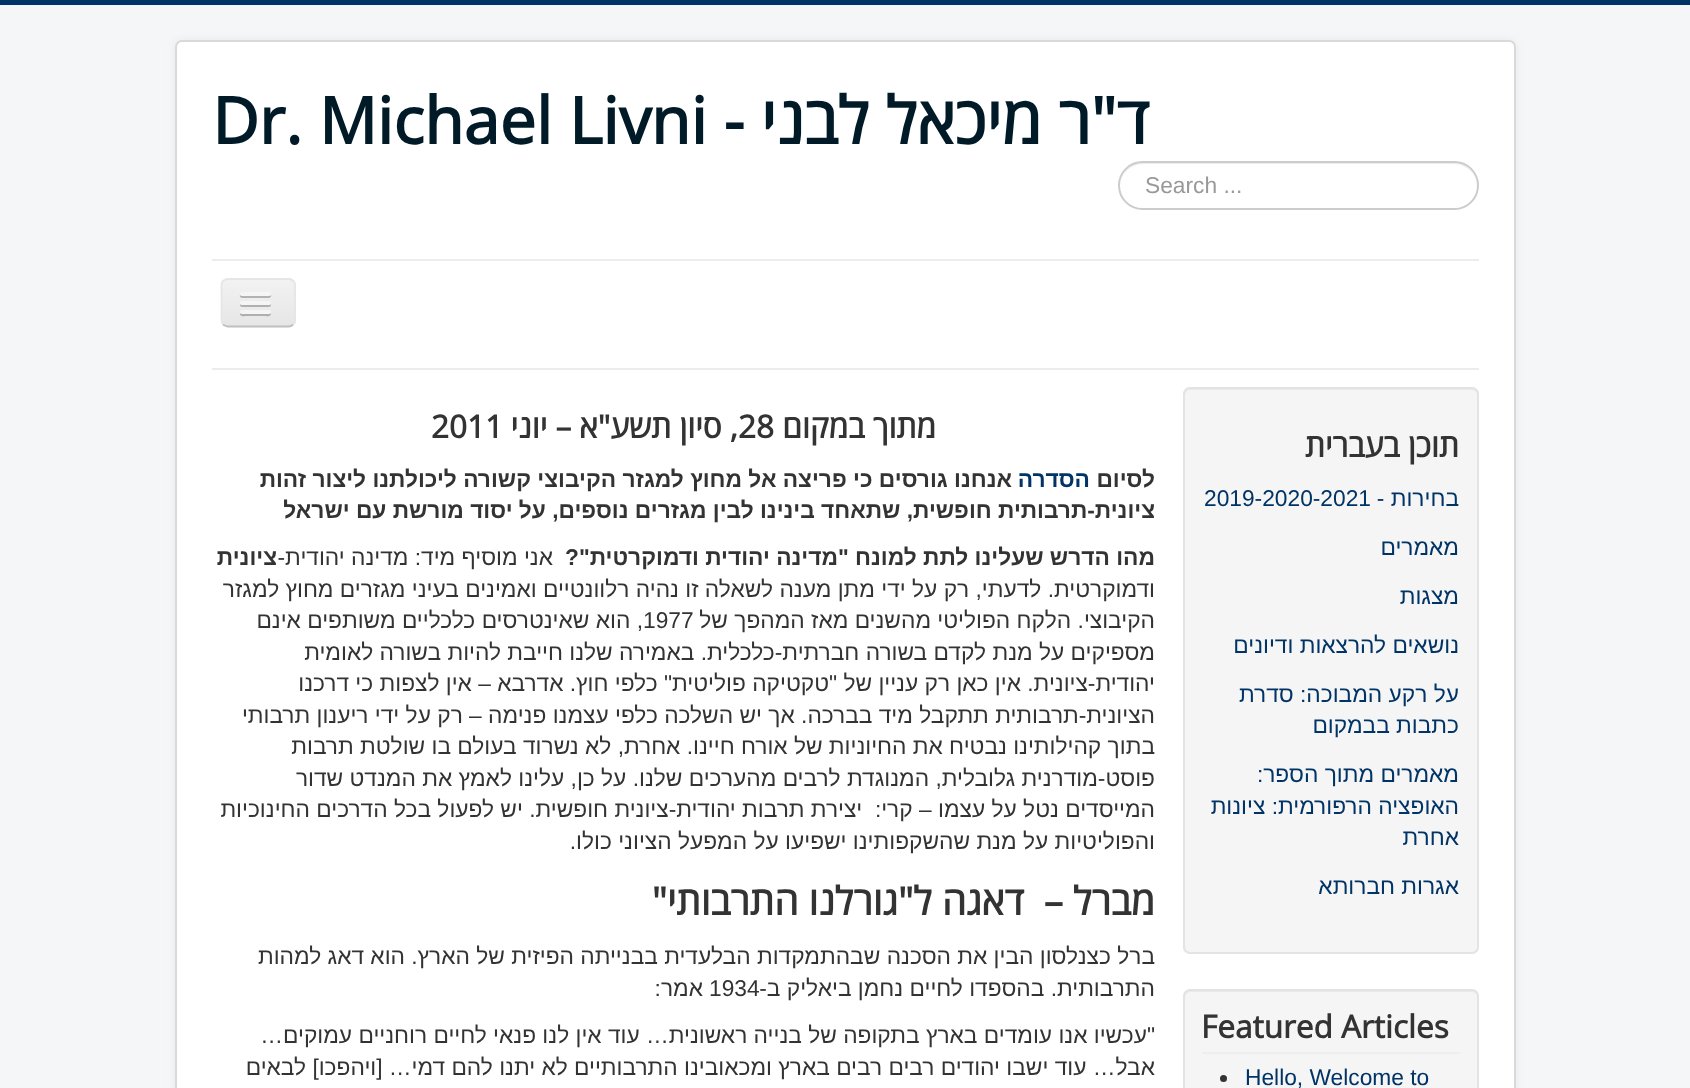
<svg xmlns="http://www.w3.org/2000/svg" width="1690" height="1088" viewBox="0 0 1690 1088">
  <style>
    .t1 { font: bold 64.5px Open Sans; direction: rtl; fill: #001a27; }
    .t2 { font: bold 64.5px Open Sans; fill: #001a27; }
    .t3 { font: 22.75px Liberation Sans; fill: #999; }
    .t4 { font: bold 31.5px Open Sans; direction: rtl; fill: #333; }
    .t5 { font: 22.75px Liberation Sans; direction: rtl; fill: #036; }
    .t6 { font: 22.75px Liberation Sans; fill: #036; }
    .t7 { font: bold 31.5px Open Sans; fill: #333; }
    .t8 { font: bold 22.75px Liberation Sans; direction: rtl; fill: #333; }
    .t9 { font: bold 22.75px Liberation Sans; direction: rtl; fill: #036; }
    .t10 { font: 22.75px Liberation Sans; direction: rtl; fill: #333; }
    .t11 { font: 22.75px Liberation Sans; fill: #333; }
    .t12 { font: bold 38.5px Open Sans; direction: rtl; fill: #333; }
  </style>
  <defs>
    <clipPath id="clip1"><rect x="221" y="278" width="75" height="49" rx="7"/></clipPath>
    <linearGradient id="g1" gradientUnits="userSpaceOnUse" x1="258" y1="280" x2="258" y2="326"><stop offset="0" stop-color="#f2f2f2"/><stop offset="1" stop-color="#e6e6e6"/></linearGradient>
  </defs>
  <rect width="100%" height="100%" fill="#f4f6f7"/>
  <rect x="0" y="0" width="1690" height="5" fill="#036"/>
  <rect x="175" y="40" width="1341" height="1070" rx="7" fill="#0000000d" filter="blur(5px)"/>
  <rect x="175" y="40" width="1341" height="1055" rx="7" fill="#fff"/>
  <rect x="176" y="41" width="1339" height="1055" rx="6" fill="none" stroke="#00000026" stroke-width="2"/>
  <text x="1149" y="144" class="t1">ד"ר מיכאל לבני</text>
  <text x="212" y="144" class="t2">Dr. Michael Livni -</text>
  <path d="M1143 164H1454C1467 164 1477 175 1477 186C1477 174 1467 163 1454 163H1142C1130 163 1120 174 1120 186C1120 175 1130 164 1143 164Z" fill="#ececec"/>
  <rect x="1119" y="162" width="359" height="47" rx="23.5" fill="none" stroke="#ccc" stroke-width="2"/>
  <text x="1145" y="193" class="t3">Search ...</text>
  <rect x="212" y="259" width="1267" height="2" fill="#ececec"/>
  <rect x="212" y="368" width="1267" height="2" fill="#ececec"/>
  <rect x="221" y="278" width="75" height="49" rx="7" fill="#ededed"/>
  <g clip-path="url(#clip1)">
    <rect x="221" y="280" width="75" height="46" fill="url(#g1)"/>
  </g>
  <path d="M293 324.5C292 325.5 290.5 326.5 289 326.5H227.5C226 326.5 224.5 325.5 223 324.5" fill="none" stroke="#bfbfbf" stroke-width="1.8"/>
  <path d="M223 324.5C222 323.5 221.5 322 221.5 320V285C221.5 283.5 222 282 223 281C224.5 280 226 279 227.5 279H289C290.5 279 292 280 293 281C294 282 295 283.5 295 285V320C295 322 294 323.5 293 324.5" fill="none" stroke="#e6e6e6" stroke-width="1.8"/>
  <path d="M240 295C238.5 299 245.5 298 246.5 298H264.5C265.5 298 272.5 299 271 295L269.5 295.5H241.5Z" fill="#b2b2b2"/>
  <rect x="240" y="292" width="31" height="4" rx="2" fill="#f5f5f5"/>
  <path d="M240.5 304C238 308 246 307 246.5 307H264.5C265 307 273 308 270.5 304L269.5 304.5H241.5Z" fill="#b0b0b0"/>
  <rect x="240" y="301" width="31" height="4" rx="2" fill="#f5f5f5"/>
  <path d="M240.5 313L240 314.5C240.5 317 245.5 316 246.5 316H264.5C265.5 316 270.5 317 271 314.5L270.5 313C269.5 313.5 241.5 313.5 240.5 313Z" fill="#afafaf"/>
  <rect x="240" y="310" width="31" height="4" rx="2" fill="#f5f5f5"/>
  <rect x="1183" y="387" width="296" height="567" rx="7" fill="#f5f5f5"/>
  <path d="M1190 390H1472C1475 390 1477 393 1477 396C1477 393 1476 389 1472 389H1189C1185 390 1185 393 1185 396C1185 393 1187 390 1190 390Z" fill="#e9e9e9"/>
  <rect x="1184" y="388" width="294" height="565" rx="6" fill="none" stroke="#e3e3e3" stroke-width="2"/>
  <text x="1459" y="457" class="t4">תוכן בעברית</text>
  <text x="1459" y="506" class="t5">בחירות -</text>
  <text x="1204" y="506" class="t6">2019-2020-2021</text>
  <text x="1459" y="555" class="t5">מאמרים</text>
  <text x="1459" y="604" class="t5">מצגות</text>
  <text x="1459" y="653" class="t5">נושאים להרצאות ודיונים</text>
  <text x="1459" y="702" class="t5">על רקע המבוכה: סדרת</text>
  <text x="1459" y="733" class="t5">כתבות בבמקום</text>
  <text x="1459" y="782" class="t5">מאמרים מתוך הספר:</text>
  <text x="1459" y="814" class="t5">האופציה הרפורמית: ציונות</text>
  <text x="1459" y="845" class="t5">אחרת</text>
  <text x="1459" y="894" class="t5">אגרות חברותא</text>
  <rect x="1183" y="989" width="296" height="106" rx="7" fill="#f5f5f5"/>
  <path d="M1190 992H1472C1475 992 1477 995 1477 998C1477 995 1476 991 1472 991H1189C1185 992 1185 995 1185 998C1185 995 1187 992 1190 992Z" fill="#e9e9e9"/>
  <rect x="1184" y="990" width="294" height="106" rx="6" fill="none" stroke="#e3e3e3" stroke-width="2"/>
  <rect x="1202" y="1052" width="258" height="2" fill="#eee"/>
  <text x="1201" y="1038" class="t7">Featured Articles</text>
  <text x="1245" y="1085" class="t6">Hello, Welcome to</text>
  <circle cx="1223.5" cy="1078.5" r="3.5" fill="#333"/>
  <text x="936" y="438" class="t4">מתוך במקום</text>
  <text x="738" y="438" class="t7">28</text>
  <text x="738" y="438" class="t4">, סיון תשע"א – יוני</text>
  <text x="431" y="438" class="t7">2011</text>
  <text x="1155" y="487" class="t8">לסיום</text>
  <text x="1090" y="487" class="t9">הסדרה</text>
  <text x="1012" y="487" class="t8">אנחנו גורסים כי פריצה אל מחוץ למגזר הקיבוצי קשורה ליכולתנו ליצור זהות</text>
  <text x="1155" y="518" class="t8">ציונית-תרבותית חופשית, שתאחד בינינו לבין מגזרים נוספים, על יסוד מורשת עם ישראל</text>
  <text x="1155" y="565" class="t8">מהו הדרש שעלינו לתת למונח "מדינה יהודית ודמוקרטית"?</text>
  <text x="553" y="565" class="t10">אני מוסיף מיד: מדינה יהודית-</text>
  <text x="277" y="565" class="t8">ציונית</text>
  <text x="1155" y="597" class="t10">ודמוקרטית. לדעתי, רק על ידי מתן מענה לשאלה זו נהיה רלוונטיים ואמינים בעיני מגזרים מחוץ למגזר</text>
  <text x="1155" y="628" class="t10">הקיבוצי. הלקח הפוליטי מהשנים מאז המהפך של</text>
  <text x="643" y="628" class="t11">1977</text>
  <text x="643" y="628" class="t10">, הוא שאינטרסים כלכליים משותפים אינם</text>
  <text x="1155" y="660" class="t10">מספיקים על מנת לקדם בשורה חברתית-כלכלית. באמירה שלנו חייבת להיות בשורה לאומית</text>
  <text x="1155" y="691" class="t10">יהודית-ציונית. אין כאן רק עניין של "טקטיקה פוליטית" כלפי חוץ. אדרבא – אין לצפות כי דרכנו</text>
  <text x="1155" y="723" class="t10">הציונית-תרבותית תתקבל מיד בברכה. אך יש השלכה כלפי עצמנו פנימה – רק על ידי ריענון תרבותי</text>
  <text x="1155" y="754" class="t10">בתוך קהילותינו נבטיח את החיוניות של אורח חיינו. אחרת, לא נשרוד בעולם בו שולטת תרבות</text>
  <text x="1155" y="786" class="t10">פוסט-מודרנית גלובלית, המנוגדת לרבים מהערכים שלנו. על כן, עלינו לאמץ את המנדט שדור</text>
  <text x="1155" y="817" class="t10" xml:space="preserve">המייסדים נטל על עצמו – קרי:  יצירת תרבות יהודית-ציונית חופשית. יש לפעול בכל הדרכים החינוכיות</text>
  <text x="1155" y="849" class="t10">והפוליטיות על מנת שהשקפותינו ישפיעו על המפעל הציוני כולו.</text>
  <text x="1155" y="915" class="t12" xml:space="preserve">מברל –  דאגה ל"גורלנו התרבותי"</text>
  <text x="1155" y="964" class="t10">ברל כצנלסון הבין את הסכנה שבהתמקדות הבלעדית בבנייתה הפיזית של הארץ. הוא דאג למהות</text>
  <text x="1155" y="996" class="t10">התרבותית. בהספדו לחיים נחמן ביאליק ב-</text>
  <text x="709" y="996" class="t11">1934</text>
  <text x="703" y="996" class="t10">אמר:</text>
  <text x="1155" y="1043" class="t10">"עכשיו אנו עומדים בארץ בתקופה של בנייה ראשונית… עוד אין לנו פנאי לחיים רוחניים עמוקים…</text>
  <text x="1155" y="1075" class="t10">אבל… עוד ישבו יהודים רבים רבים בארץ ומכאובינו התרבותיים לא יתנו להם דמי… [ויהפכו] לבאים</text>
</svg>
